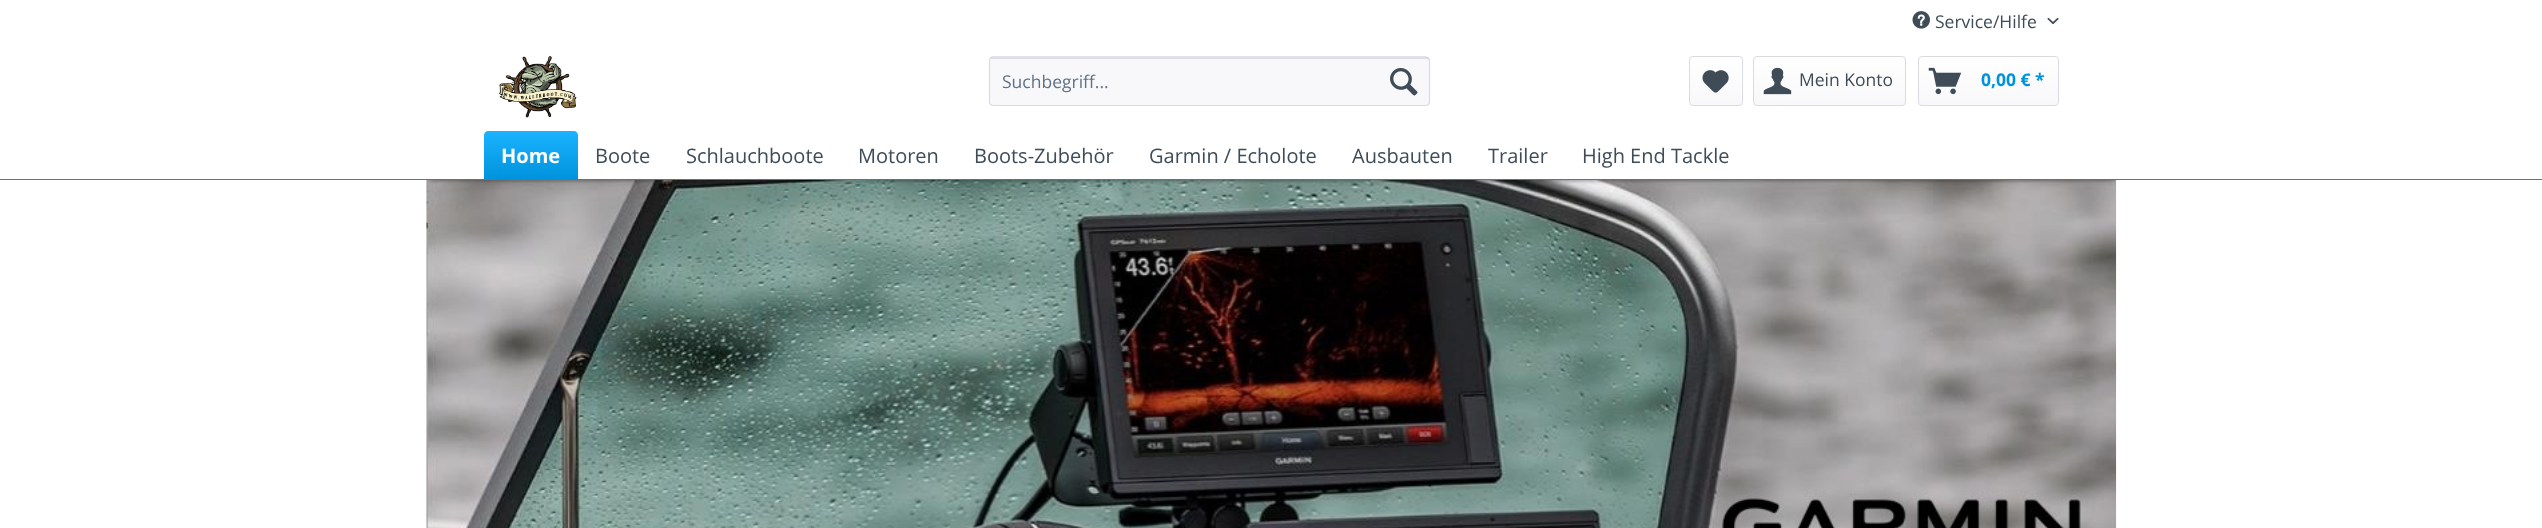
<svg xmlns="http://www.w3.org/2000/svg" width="2542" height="528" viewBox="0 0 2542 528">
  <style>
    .t1 { font: 17.5px Open Sans; fill: #3f4c58; }
    .t2 { font: 17.5px Open Sans; fill: #5f7385; }
    .t3 { font: bold 17.5px Open Sans; fill: #0093dd; }
    .t4 { font: bold 20px Open Sans; fill: #fff; }
    .t5 { font: 20px Open Sans; fill: #3f4c58; }
  </style>
  <defs>
    <linearGradient id="g1" gradientUnits="userSpaceOnUse" x1="1716" y1="58" x2="1716" y2="105"><stop offset="0" stop-color="#fff"/><stop offset="1" stop-color="#f8f8fa"/></linearGradient>
    <linearGradient id="g2" gradientUnits="userSpaceOnUse" x1="1829" y1="57" x2="1829" y2="105"><stop offset="0" stop-color="#fff"/><stop offset="1" stop-color="#f8f8fa"/></linearGradient>
    <linearGradient id="g3" gradientUnits="userSpaceOnUse" x1="1988" y1="57" x2="1988" y2="105"><stop offset="0" stop-color="#fff"/><stop offset="1" stop-color="#f8f8fa"/></linearGradient>
    <linearGradient id="g4" gradientUnits="userSpaceOnUse" x1="531" y1="131" x2="531" y2="179"><stop offset="0" stop-color="#1bb3ff"/><stop offset="1" stop-color="#0093dd"/></linearGradient>
  </defs>
  <rect width="100%" height="100%" fill="#fff"/>
  <image x="1912" y="11" width="18" height="18" href="images/1.png"/>
  <text x="1935" y="28" class="t1">Service/Hilfe</text>
  <image x="2047" y="17" width="12" height="8" href="images/2.png"/>
  <image x="499" y="56" width="78" height="62" href="images/3.png"/>
  <rect x="989" y="56" width="441" height="50" rx="4" fill="#f8f8fa"/>
  <path d="M992 59H1426C1428 59 1429 60 1429 61C1429 59 1428 58 1426 58H992L991 59L990 61C990 60 991 59 992 59Z" fill="#dadae5"/>
  <path d="M990.5 58L992.5 57H1426L1428.5 58" fill="none" stroke="#cbcbdb" stroke-width="1.2"/>
  <path d="M1428.5 58L1429.5 60V102.5L1428.5 104.5L1426 105.5H992.5L990.5 104.5L989.5 102.5V60L990.5 58" fill="none" stroke="#dadae5" stroke-width="1.2"/>
  <text x="1002" y="88" class="t2">Suchbegriff...</text>
  <image x="1390" y="68" width="28" height="28" href="images/4.png"/>
  <rect x="1690" y="58" width="51" height="47" rx="2.5" fill="url(#g1)"/>
  <rect x="1689.5" y="56.5" width="53" height="49" rx="3.5" fill="none" stroke="#dadae5"/>
  <image x="1702" y="70" width="27" height="23" href="images/5.png"/>
  <rect x="1754" y="58" width="151" height="47" rx="2.5" fill="url(#g2)"/>
  <rect x="1753.5" y="56.5" width="152" height="49" rx="3.5" fill="none" stroke="#dadae5"/>
  <image x="1763" y="67" width="29" height="28" href="images/6.png"/>
  <text x="1799" y="86" class="t1">Mein Konto</text>
  <rect x="1919" y="58" width="139" height="47" rx="2.5" fill="url(#g3)"/>
  <rect x="1918.5" y="56.5" width="140" height="49" rx="3.5" fill="none" stroke="#dadae5"/>
  <image x="1928" y="67" width="34" height="28" href="images/7.png"/>
  <text x="1981" y="86" class="t3">0,00 € *</text>
  <rect x="0" y="179" width="2542" height="1" fill="#0093dd"/>
  <path d="M488 131H574C576 131 578 133 578 135V179H484V135C484 133 486 131 488 131Z" fill="url(#g4)"/>
  <text x="501" y="163" class="t4">Home</text>
  <text x="595" y="163" class="t5">Boote</text>
  <text x="686" y="163" class="t5">Schlauchboote</text>
  <text x="858" y="163" class="t5">Motoren</text>
  <text x="974" y="163" class="t5">Boots-Zubehör</text>
  <text x="1149" y="163" class="t5">Garmin / Echolote</text>
  <text x="1352" y="163" class="t5">Ausbauten</text>
  <text x="1488" y="163" class="t5">Trailer</text>
  <text x="1582" y="163" class="t5">High End Tackle</text>
  <image x="426" y="180" width="1691" height="348" href="images/8.png"/>
</svg>
